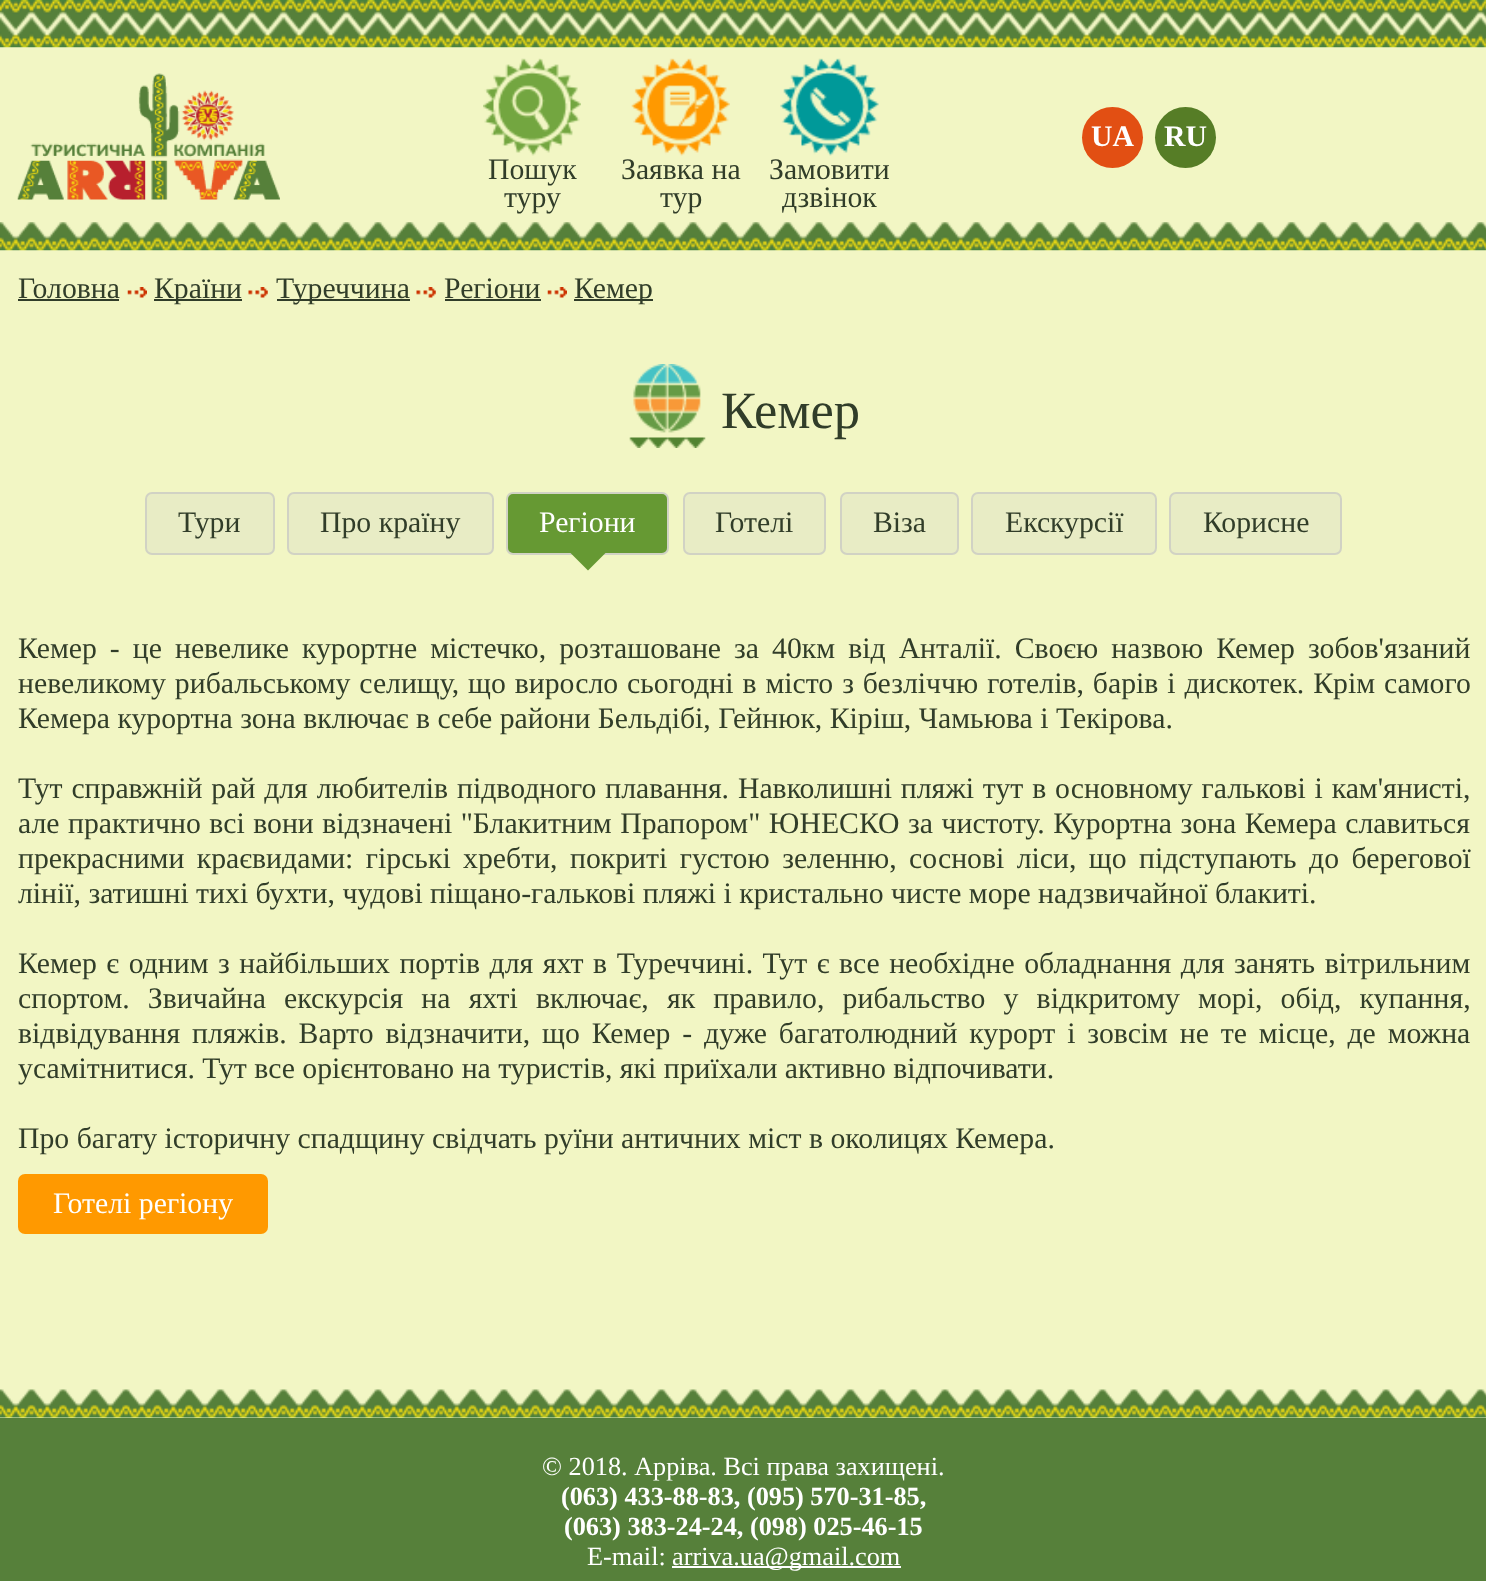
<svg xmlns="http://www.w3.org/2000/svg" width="1486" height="1581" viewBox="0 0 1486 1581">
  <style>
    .t1 { font: bold 29.75px Liberation Serif; fill: #fff; }
    .t2 { font: 29.75px Liberation Serif; fill: #313d29; }
    .t3 { font: 52.5px Liberation Serif; fill: #313d29; }
    .t4 { font: 29.75px Liberation Serif; fill: #fff; }
    .t5 { font: 26.25px Liberation Serif; fill: #fff; }
    .t6 { font: bold 26.25px Liberation Serif; fill: #fff; }
  </style>
  <defs>
    <clipPath id="clip1"><rect x="18" y="329" width="1452" height="1001"/></clipPath>
  </defs>
  <rect width="100%" height="100%" fill="#f2f6c4"/>
  <image x="0" y="0" width="1486" height="48" href="images/1.png"/>
  <image x="17" y="73" width="263" height="127" href="images/2.png"/>
  <circle cx="1112.5" cy="137.5" r="30.5" fill="#e24f13"/>
  <text x="1091" y="146" class="t1">UA</text>
  <circle cx="1185.5" cy="137.5" r="30.5" fill="#567d26"/>
  <text x="1164" y="146" class="t1">RU</text>
  <image x="483" y="58" width="98" height="98" href="images/3.png"/>
  <text x="488" y="179" class="t2">Пошук</text>
  <text x="504" y="207" class="t2">туру</text>
  <image x="631" y="58" width="99" height="98" href="images/4.png"/>
  <text x="621" y="179" class="t2">Заявка на</text>
  <text x="660" y="207" class="t2">тур</text>
  <image x="780" y="58" width="99" height="98" href="images/5.png"/>
  <text x="769" y="179" class="t2">Замовити</text>
  <text x="782" y="207" class="t2">дзвінок</text>
  <image x="0" y="222" width="1486" height="29" href="images/6.png"/>
  <text x="18" y="298" class="t2">Головна</text>
  <rect x="18" y="299" width="101" height="2" fill="#313d29"/>
  <image x="127" y="287" width="20" height="11" href="images/7.png"/>
  <rect x="154" y="299" width="88" height="2" fill="#313d29"/>
  <text x="154" y="298" class="t2">Країни</text>
  <image x="248" y="287" width="20" height="11" href="images/8.png"/>
  <rect x="277" y="299" width="133" height="2" fill="#313d29"/>
  <text x="276" y="298" class="t2">Туреччина</text>
  <image x="416" y="287" width="20" height="11" href="images/9.png"/>
  <text x="444" y="298" class="t2">Регіони</text>
  <rect x="445" y="299" width="96" height="2" fill="#313d29"/>
  <image x="547" y="287" width="20" height="11" href="images/7.png"/>
  <rect x="574" y="299" width="79" height="2" fill="#313d29"/>
  <text x="574" y="298" class="t2">Кемер</text>
  <image x="629" y="364" width="77" height="84" href="images/10.png"/>
  <text x="721" y="428" class="t3">Кемер</text>
  <rect x="146" y="493" width="128" height="61" rx="6" fill="#e8ecc5" stroke="#d1d2c4" stroke-width="2"/>
  <text x="178" y="532" class="t2">Тури</text>
  <rect x="288" y="493" width="205" height="61" rx="6" fill="#e8ecc5" stroke="#d1d2c4" stroke-width="2"/>
  <text x="320" y="532" class="t2">Про країну</text>
  <rect x="507" y="493" width="161" height="61" rx="6" fill="#693" stroke="#d1d2c4" stroke-width="2"/>
  <text x="539" y="532" class="t4">Регіони</text>
  <path d="M570.5 553H605.5L588 570.5Z" fill="#693"/>
  <rect x="684" y="493" width="141" height="61" rx="6" fill="#e8ecc5" stroke="#d1d2c4" stroke-width="2"/>
  <text x="715" y="532" class="t2">Готелі</text>
  <rect x="841" y="493" width="117" height="61" rx="6" fill="#e8ecc5" stroke="#d1d2c4" stroke-width="2"/>
  <text x="873" y="532" class="t2">Віза</text>
  <rect x="972" y="493" width="184" height="61" rx="6" fill="#e8ecc5" stroke="#d1d2c4" stroke-width="2"/>
  <text x="1005" y="532" class="t2">Екскурсії</text>
  <rect x="1170" y="493" width="171" height="61" rx="6" fill="#e8ecc5" stroke="#d1d2c4" stroke-width="2"/>
  <text x="1203" y="532" class="t2">Корисне</text>
  <text x="18" y="658" word-spacing="5.6" class="t2">Кемер - це невелике курортне містечко, розташоване за 40км від Анталії. Своєю назвою Кемер зобов'язаний</text>
  <text x="18" y="693" word-spacing="1.5" class="t2">невеликому рибальському селищу, що виросло сьогодні в місто з безліччю готелів, барів і дискотек. Крім самого</text>
  <text x="18" y="728" class="t2">Кемера курортна зона включає в себе райони Бельдібі, Гейнюк, Кіріш, Чамьюва і Текірова.</text>
  <text x="18" y="798" word-spacing="1.4" class="t2">Тут справжній рай для любителів підводного плавання. Навколишні пляжі тут в основному галькові і кам'янисті,</text>
  <text x="18" y="833" word-spacing="1.1" class="t2">але практично всі вони відзначені "Блакитним Прапором" ЮНЕСКО за чистоту. Курортна зона Кемера славиться</text>
  <text x="18" y="868" word-spacing="5" class="t2">прекрасними краєвидами: гірські хребти, покриті густою зеленню, соснові ліси, що підступають до берегової</text>
  <g clip-path="url(#clip1)">
    <text x="18" y="903" class="t2">лінії, затишні тихі бухти, чудові піщано-галькові пляжі і кристально чисте море надзвичайної блакиті.</text>
  </g>
  <text x="18" y="973" word-spacing="2.1" class="t2">Кемер є одним з найбільших портів для яхт в Туреччині. Тут є все необхідне обладнання для занять вітрильним</text>
  <text x="18" y="1008" word-spacing="10.75" class="t2">спортом. Звичайна екскурсія на яхті включає, як правило, рибальство у відкритому морі, обід, купання,</text>
  <text x="18" y="1043" word-spacing="4.4" class="t2">відвідування пляжів. Варто відзначити, що Кемер - дуже багатолюдний курорт і зовсім не те місце, де можна</text>
  <text x="18" y="1078" class="t2">усамітнитися. Тут все орієнтовано на туристів, які приїхали активно відпочивати.</text>
  <text x="18" y="1148" class="t2">Про багату історичну спадщину свідчать руїни античних міст в околицях Кемера.</text>
  <rect x="18" y="1174" width="250" height="60" rx="7" fill="#f90"/>
  <text x="53" y="1213" class="t4">Готелі регіону</text>
  <rect x="0" y="1418" width="1486" height="163" fill="#56803a"/>
  <image x="0" y="1389" width="1486" height="29" href="images/11.png"/>
  <text x="542" y="1475" class="t5">© 2018. Арріва. Всі права захищені.</text>
  <text x="561" y="1505" class="t6">(063) 433-88-83, (095) 570-31-85,</text>
  <text x="564" y="1535" class="t6">(063) 383-24-24, (098) 025-46-15</text>
  <text x="587" y="1565" class="t5">E-mail:</text>
  <rect x="672" y="1566" width="229" height="2" fill="#fff"/>
  <text x="672" y="1565" class="t5">arriva.ua@gmail.com</text>
</svg>
